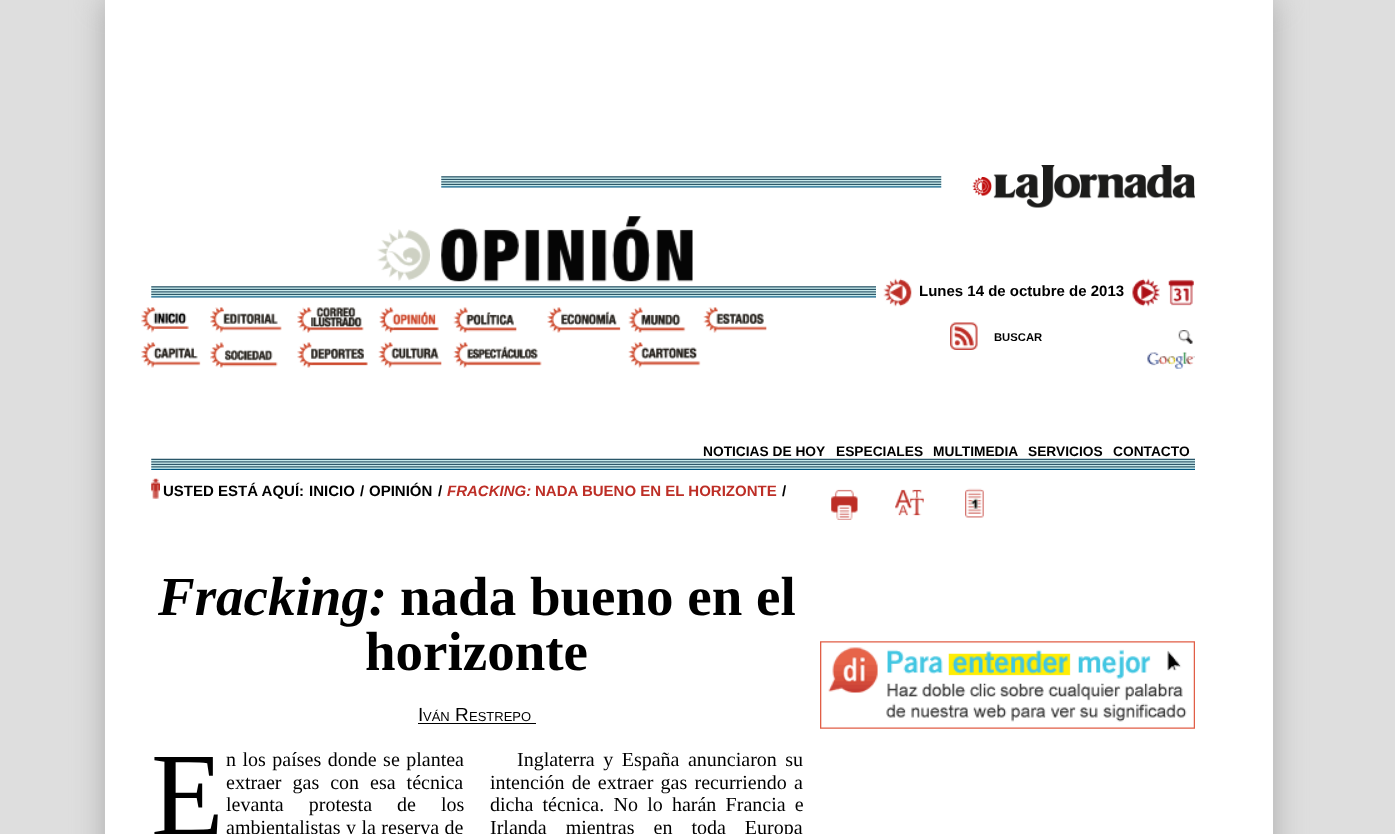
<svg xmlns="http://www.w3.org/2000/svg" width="1395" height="834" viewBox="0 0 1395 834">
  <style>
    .t1 { font: bold 15px Liberation Sans; fill: #000; }
    .t2 { font: bold 11.25px Liberation Sans; fill: #000; }
    .t3 { font: bold 13.75px Liberation Sans; fill: #000; }
    .t4 { font: italic bold 15px Liberation Sans; fill: #bd2e26; }
    .t5 { font: bold 15px Liberation Sans; fill: #bd2e26; }
    .t6 { font: italic bold 55px Liberation Serif; fill: #000; }
    .t7 { font: bold 55px Liberation Serif; fill: #000; }
    .t8 { font: 19px Liberation Sans; fill: #000; }
    .t9 { font: 13px Liberation Sans; fill: #000; }
    .t10 { font: 119px Liberation Serif; fill: #000; }
    .t11 { font: 20px Liberation Serif; fill: #000; }
  </style>
  <rect width="100%" height="100%" fill="#dedede"/>
  <rect x="105" y="-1" width="1168" height="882" fill="#aaa" filter="blur(15.5px)"/>
  <rect x="105" y="0" width="1168" height="834" fill="#fff"/>
  <image x="441" y="176" width="501" height="12" href="images/1.png"/>
  <image x="972" y="165" width="223" height="43" href="images/2.png"/>
  <image x="377" y="229" width="53" height="52" href="images/3.png"/>
  <image x="441" y="216" width="252" height="66" href="images/4.png"/>
  <image x="151" y="286" width="725" height="12" href="images/5.png"/>
  <image x="883" y="278" width="29" height="29" href="images/6.png"/>
  <text x="919" y="296" class="t1">Lunes 14 de octubre de 2013</text>
  <image x="1132" y="278" width="28" height="29" href="images/7.png"/>
  <image x="1168" y="279" width="26" height="27" href="images/8.png"/>
  <image x="141" y="307" width="48" height="26" href="images/9.png"/>
  <image x="210" y="307" width="72" height="26" href="images/10.png"/>
  <image x="297" y="307" width="67" height="26" href="images/11.png"/>
  <image x="379" y="307" width="60" height="26" href="images/12.png"/>
  <image x="453" y="307" width="64" height="26" href="images/13.png"/>
  <image x="547" y="307" width="74" height="26" href="images/14.png"/>
  <image x="628" y="307" width="58" height="26" href="images/15.png"/>
  <image x="703" y="307" width="64" height="26" href="images/16.png"/>
  <image x="141" y="342" width="60" height="26" href="images/17.png"/>
  <image x="210" y="342" width="68" height="26" href="images/18.png"/>
  <image x="297" y="342" width="71" height="26" href="images/19.png"/>
  <image x="378" y="342" width="64" height="26" href="images/20.png"/>
  <image x="453" y="342" width="89" height="26" href="images/21.png"/>
  <image x="628" y="342" width="73" height="26" href="images/22.png"/>
  <image x="950" y="322" width="28" height="28" href="images/23.png"/>
  <text x="994" y="341" class="t2">BUSCAR</text>
  <image x="1178" y="330" width="15" height="14" href="images/24.png"/>
  <image x="1147" y="352" width="48" height="17" href="images/25.png"/>
  <text x="703" y="456" class="t3">NOTICIAS DE HOY</text>
  <text x="836" y="456" class="t3">ESPECIALES</text>
  <text x="933" y="456" class="t3">MULTIMEDIA</text>
  <text x="1028" y="456" class="t3">SERVICIOS</text>
  <text x="1113" y="456" class="t3">CONTACTO</text>
  <image x="151" y="458" width="1044" height="12" href="images/26.png"/>
  <image x="151" y="478" width="9" height="21" href="images/27.png"/>
  <text x="163" y="496" class="t1">USTED ESTÁ AQUÍ:</text>
  <text x="309" y="496" class="t1">INICIO</text>
  <text x="360" y="496" class="t1">/</text>
  <text x="369" y="496" class="t1">OPINIÓN</text>
  <text x="438" y="496" class="t1">/</text>
  <text x="447" y="496" class="t4">FRACKING:</text>
  <text x="535" y="496" class="t5">NADA BUENO EN EL HORIZONTE</text>
  <text x="782" y="496" class="t1">/</text>
  <image x="831" y="489" width="27" height="31" href="images/28.png"/>
  <image x="895" y="489" width="29" height="27" href="images/29.png"/>
  <image x="965" y="488" width="19" height="30" href="images/30.png"/>
  <image x="820" y="641" width="375" height="88" href="images/31.png"/>
  <text x="158" y="615" class="t6">Fracking:</text>
  <text x="400" y="615" class="t7">nada bueno en el</text>
  <text x="365" y="670" class="t7">horizonte</text>
  <text x="418" y="721" class="t8">I</text>
  <text x="423" y="721" class="t9">VÁN</text>
  <text x="455" y="721" class="t8">R</text>
  <text x="469" y="721" class="t9">ESTREPO</text>
  <rect x="418" y="723" width="118" height="1" fill="#000"/>
  <text x="151" y="835" class="t10">E</text>
  <text x="226" y="766" word-spacing="1.5" class="t11">n los países donde se plantea</text>
  <text x="226" y="789" word-spacing="6" class="t11">extraer gas con esa técnica</text>
  <text x="226" y="811" word-spacing="20" class="t11">levanta protesta de los</text>
  <text x="226" y="834" word-spacing="0.5" class="t11">ambientalistas y la reserva de</text>
  <text x="517" y="766" word-spacing="3.5" class="t11">Inglaterra y España anunciaron su</text>
  <text x="490" y="789" word-spacing="2.25" class="t11">intención de extraer gas recurriendo a</text>
  <text x="490" y="811" word-spacing="4.25" class="t11">dicha técnica. No lo harán Francia e</text>
  <text x="490" y="834" word-spacing="14" class="t11">Irlanda mientras en toda Europa</text>
</svg>
